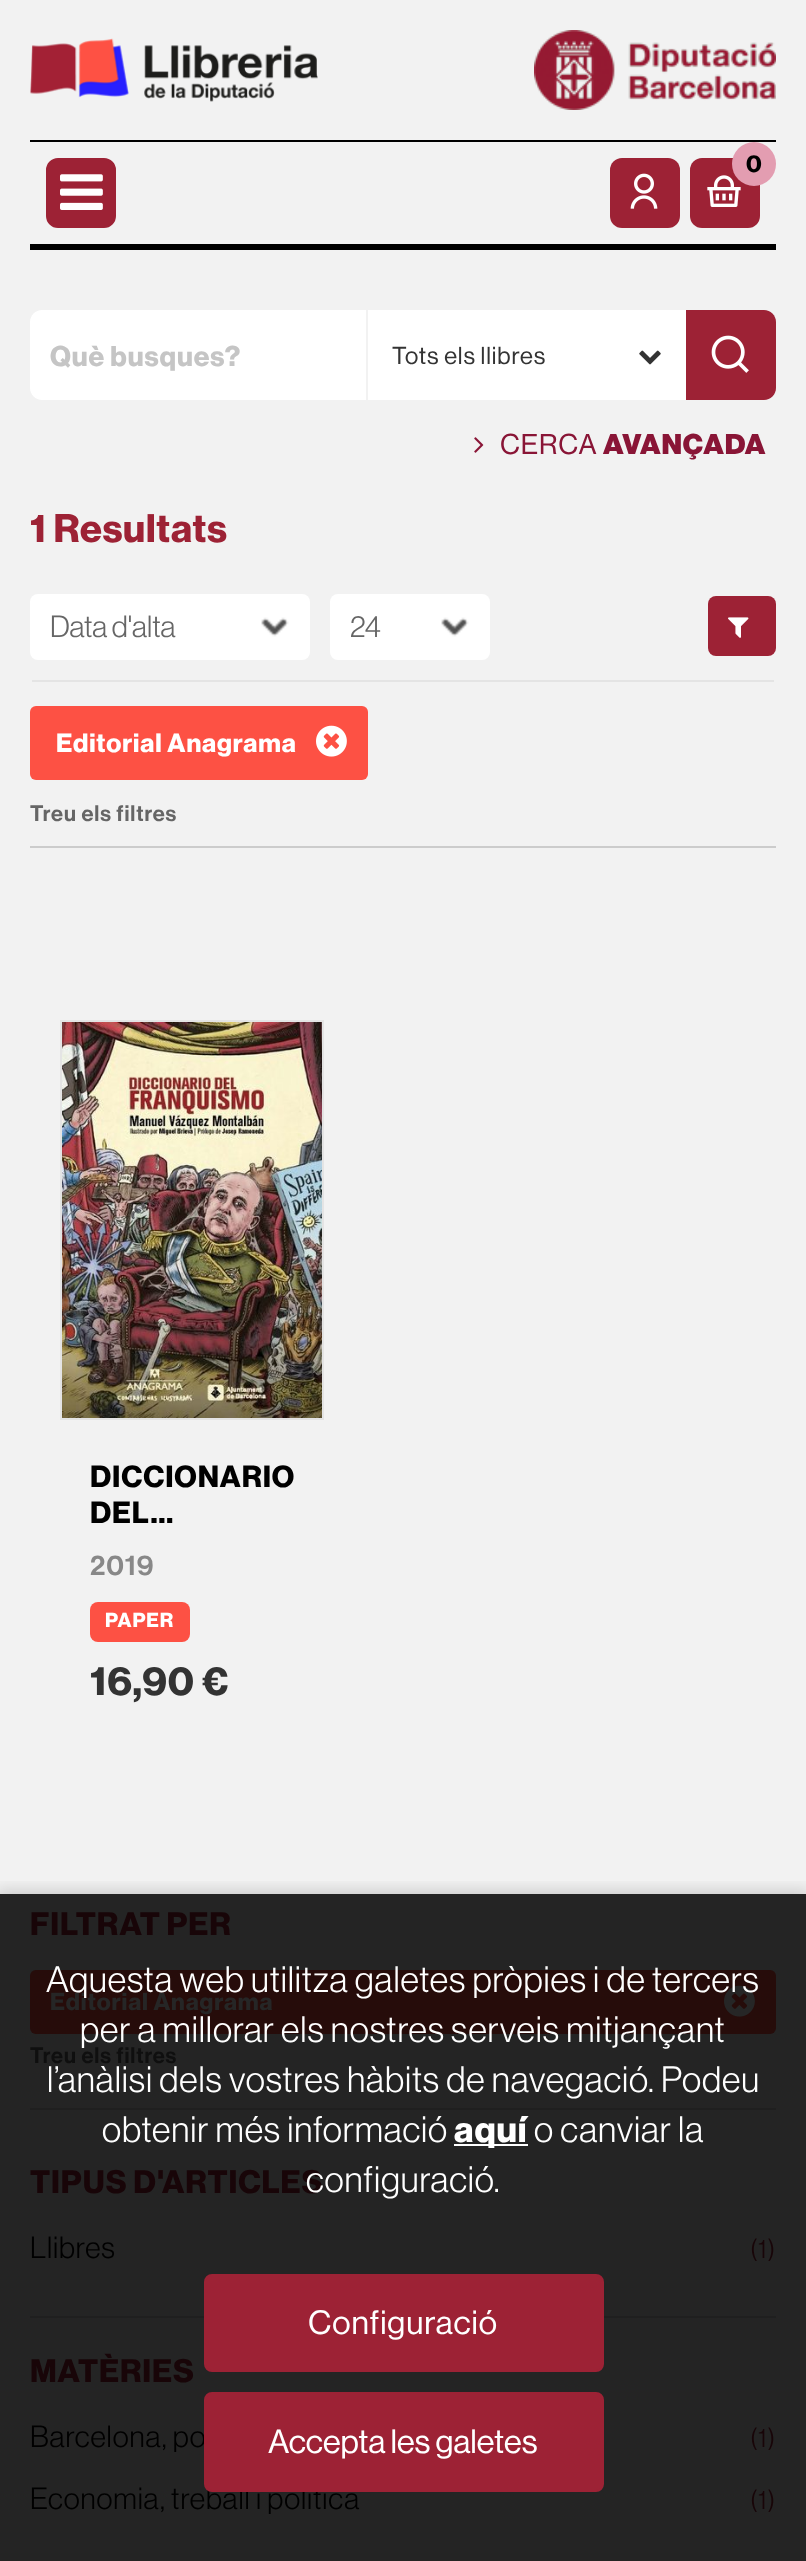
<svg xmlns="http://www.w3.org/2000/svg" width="806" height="2561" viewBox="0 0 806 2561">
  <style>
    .t1 { font: bold 24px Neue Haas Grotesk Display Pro; letter-spacing: 0.9px; fill: #000; }
    .t2 { font: bold 28px Neue Haas Grotesk Display Pro; letter-spacing: 0.9px; fill: #c5c5c5; }
    .t3 { font: 500 24px Neue Haas Grotesk Display Pro; letter-spacing: 0.9px; fill: #333; }
    .t4 { font: 500 28px Neue Haas Grotesk Display Pro; letter-spacing: 0.9px; fill: #891536; }
    .t5 { font: 900 28px Neue Haas Grotesk Display Pro; letter-spacing: 0.9px; fill: #891536; }
    .t6 { font: bold 39px Neue Haas Grotesk Display Pro; letter-spacing: 0.75px; fill: #9d2235; }
    .t7 { font: 30px Neue Haas Grotesk Display Pro; fill: #666; }
    .t8 { font: bold 26px Neue Haas Grotesk Display Pro; letter-spacing: 0.9px; fill: #fff; }
    .t9 { font: 500 22px 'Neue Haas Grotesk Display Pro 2'; letter-spacing: 0.9px; fill: #666; }
    .t10 { font: bold 30px Neue Haas Grotesk Display Pro; letter-spacing: 0.9px; fill: #000; }
    .t11 { font: 500 28px 'Neue Haas Grotesk Display Pro 2'; letter-spacing: 1px; fill: #888; }
    .t12 { font: bold 20px Neue Haas Grotesk Display Pro; letter-spacing: 0.9px; fill: #fff; }
    .t13 { font: bold 40px Neue Haas Grotesk Display Pro; letter-spacing: 0.9px; fill: #333; }
    .t14 { font: bold 32px Neue Haas Grotesk Display Pro; letter-spacing: 0.9px; fill: #180508; }
    .t15 { font: bold 24px Neue Haas Grotesk Display Pro; letter-spacing: 0.9px; fill: #262626; }
    .t16 { font: 500 22px 'Neue Haas Grotesk Display Pro 2'; letter-spacing: 0.9px; fill: #0f0f0f; }
    .t17 { font: 30px Neue Haas Grotesk Display Pro; letter-spacing: 0.9px; fill: #000; }
    .t18 { font: 26px Neue Haas Grotesk Display Pro; letter-spacing: 0.9px; fill: #180508; }
    .t19 { font: 36px Neue Haas Grotesk Display Pro; letter-spacing: 0.9px; fill: #fff; }
    .t20 { font: bold 36px Neue Haas Grotesk Display Pro; letter-spacing: 0.9px; fill: #fff; }
    .t21 { font: 500 33px Neue Haas Grotesk Display Pro; letter-spacing: 0.9px; fill: #fff; }
    .t22 { font: 500 33px Neue Haas Grotesk Display Pro; fill: #fff; }
  </style>
  <defs>
    <clipPath id="clip1"><rect x="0" y="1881" width="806" height="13"/></clipPath>
  </defs>
  <rect width="100%" height="100%" fill="#f2f2f2"/>
  <rect x="0" y="1894" width="806" height="667" fill="#242424"/>
  <image x="30" y="38" width="288" height="64" href="images/1.png"/>
  <image x="534" y="30" width="242" height="80" href="images/2.png"/>
  <rect x="30" y="140" width="746" height="2" fill="#000"/>
  <rect x="30" y="244" width="746" height="6" fill="#000"/>
  <rect x="47" y="159" width="68" height="68" rx="11" fill="#9d2235" stroke="#9d2235" stroke-width="2"/>
  <image x="60" y="174" width="43" height="36" href="images/3.png"/>
  <rect x="610" y="158" width="70" height="70" rx="12" fill="#9d2235"/>
  <image x="630" y="173" width="28" height="36" href="images/4.png"/>
  <rect x="690" y="158" width="70" height="70" rx="12" fill="#9d2235"/>
  <image x="707" y="175" width="34" height="32" href="images/5.png"/>
  <circle cx="754" cy="164" r="22" fill="#e39db1"/>
  <text x="746" y="172" class="t1">0</text>
  <path d="M42 310H366V400H42C35.5 400 30 394.5 30 388V322C30 315.5 35.5 310 42 310Z" fill="#fff"/>
  <text x="50" y="366" class="t2">Què busques?</text>
  <rect x="368" y="310" width="318" height="90" fill="#fff"/>
  <text x="392" y="364" class="t3">Tots els llibres</text>
  <image x="639" y="350" width="22" height="15" href="images/6.png"/>
  <path d="M686 310H764C770.5 310 776 315.5 776 322V388C776 394.5 770.5 400 764 400H686Z" fill="#9d2235"/>
  <image x="711" y="335" width="38" height="38" href="images/7.png"/>
  <image x="474" y="437" width="10" height="16" href="images/8.png"/>
  <text x="500" y="454" class="t4">CERCA</text>
  <text x="603" y="454" class="t5">AVANÇADA</text>
  <text x="30" y="542" class="t6">1 Resultats</text>
  <rect x="32" y="680" width="742" height="2" fill="#e4e4e4"/>
  <rect x="30" y="594" width="280" height="66" rx="8" fill="#fff"/>
  <image x="261" y="617" width="28" height="20" href="images/9.png"/>
  <text x="50" y="637" class="t7">Data d'alta</text>
  <rect x="330" y="594" width="160" height="66" rx="8" fill="#fff"/>
  <image x="441" y="617" width="28" height="20" href="images/9.png"/>
  <text x="350" y="637" class="t7">24</text>
  <rect x="708" y="596" width="68" height="60" rx="8" fill="#9d2235"/>
  <image x="728" y="617" width="21" height="21" href="images/10.png"/>
  <rect x="30" y="846" width="746" height="2" fill="#ccc"/>
  <rect x="30" y="706" width="338" height="74" rx="6" fill="#fd5144"/>
  <text x="56" y="752" class="t8">Editorial Anagrama</text>
  <image x="316" y="725" width="31" height="32" href="images/11.png"/>
  <text x="30" y="821" class="t9">Treu els filtres</text>
  <rect x="61" y="1021" width="262" height="398" fill="none" stroke="#e4e4e4" stroke-width="2"/>
  <image x="62" y="1022" width="260" height="396" href="images/12.png"/>
  <text x="90" y="1487" class="t10">DICCIONARIO</text>
  <text x="90" y="1523" class="t10">DEL…</text>
  <text x="90" y="1575" class="t11">2019</text>
  <rect x="90" y="1602" width="100" height="40" rx="8" fill="#fd5144"/>
  <text x="105" y="1627" class="t12">PAPER</text>
  <text x="90" y="1695" class="t13">16,90 €</text>
  <rect x="30" y="2108" width="746" height="2" fill="#1f1f1f"/>
  <text x="30" y="1935" class="t14">FILTRAT PER</text>
  <rect x="30" y="1970" width="746" height="64" rx="6" fill="#260c0a"/>
  <text x="50" y="2010" class="t15">Editorial Anagrama</text>
  <image x="724" y="1985" width="31" height="32" href="images/13.png"/>
  <text x="30" y="2063" class="t16">Treu els filtres</text>
  <rect x="30" y="2316" width="746" height="2" fill="#1f1f1f"/>
  <text x="30" y="2193" class="t14">TIPUS D'ARTICLES</text>
  <text x="30" y="2258" class="t17">Llibres</text>
  <text x="750" y="2258" class="t18">(1)</text>
  <text x="30" y="2382" class="t14">MATÈRIES</text>
  <text x="30" y="2447" class="t17">Barcelona, po</text>
  <text x="750" y="2447" class="t18">(1)</text>
  <text x="30" y="2509" class="t17">Economia, treball i política</text>
  <text x="750" y="2509" class="t18">(1)</text>
  <g clip-path="url(#clip1)">
    <rect x="-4" y="1890" width="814" height="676" fill="#00000026" filter="blur(8px)"/>
  </g>
  <text x="46" y="1992" class="t19">Aquesta web utilitza galetes pròpies i de tercers</text>
  <text x="80" y="2042" class="t19">per a millorar els nostres serveis mitjançant</text>
  <text x="47" y="2092" class="t19">l’anàlisi dels vostres hàbits de navegació. Podeu</text>
  <text x="102" y="2142" class="t19">obtenir més informació</text>
  <rect x="454" y="2144" width="74" height="2" fill="#fff"/>
  <text x="454" y="2142" class="t20">aquí</text>
  <text x="534" y="2142" class="t19">o canviar la</text>
  <text x="306" y="2192" class="t19">configuració.</text>
  <rect x="205" y="2275" width="398" height="96" rx="7" fill="#9d2235" stroke="#9d2235" stroke-width="2"/>
  <text x="308" y="2334" class="t21">Configuració</text>
  <rect x="205" y="2393" width="398" height="98" rx="7" fill="#9d2235" stroke="#9d2235" stroke-width="2"/>
  <text x="268" y="2453" class="t22">Accepta les galetes</text>
</svg>
